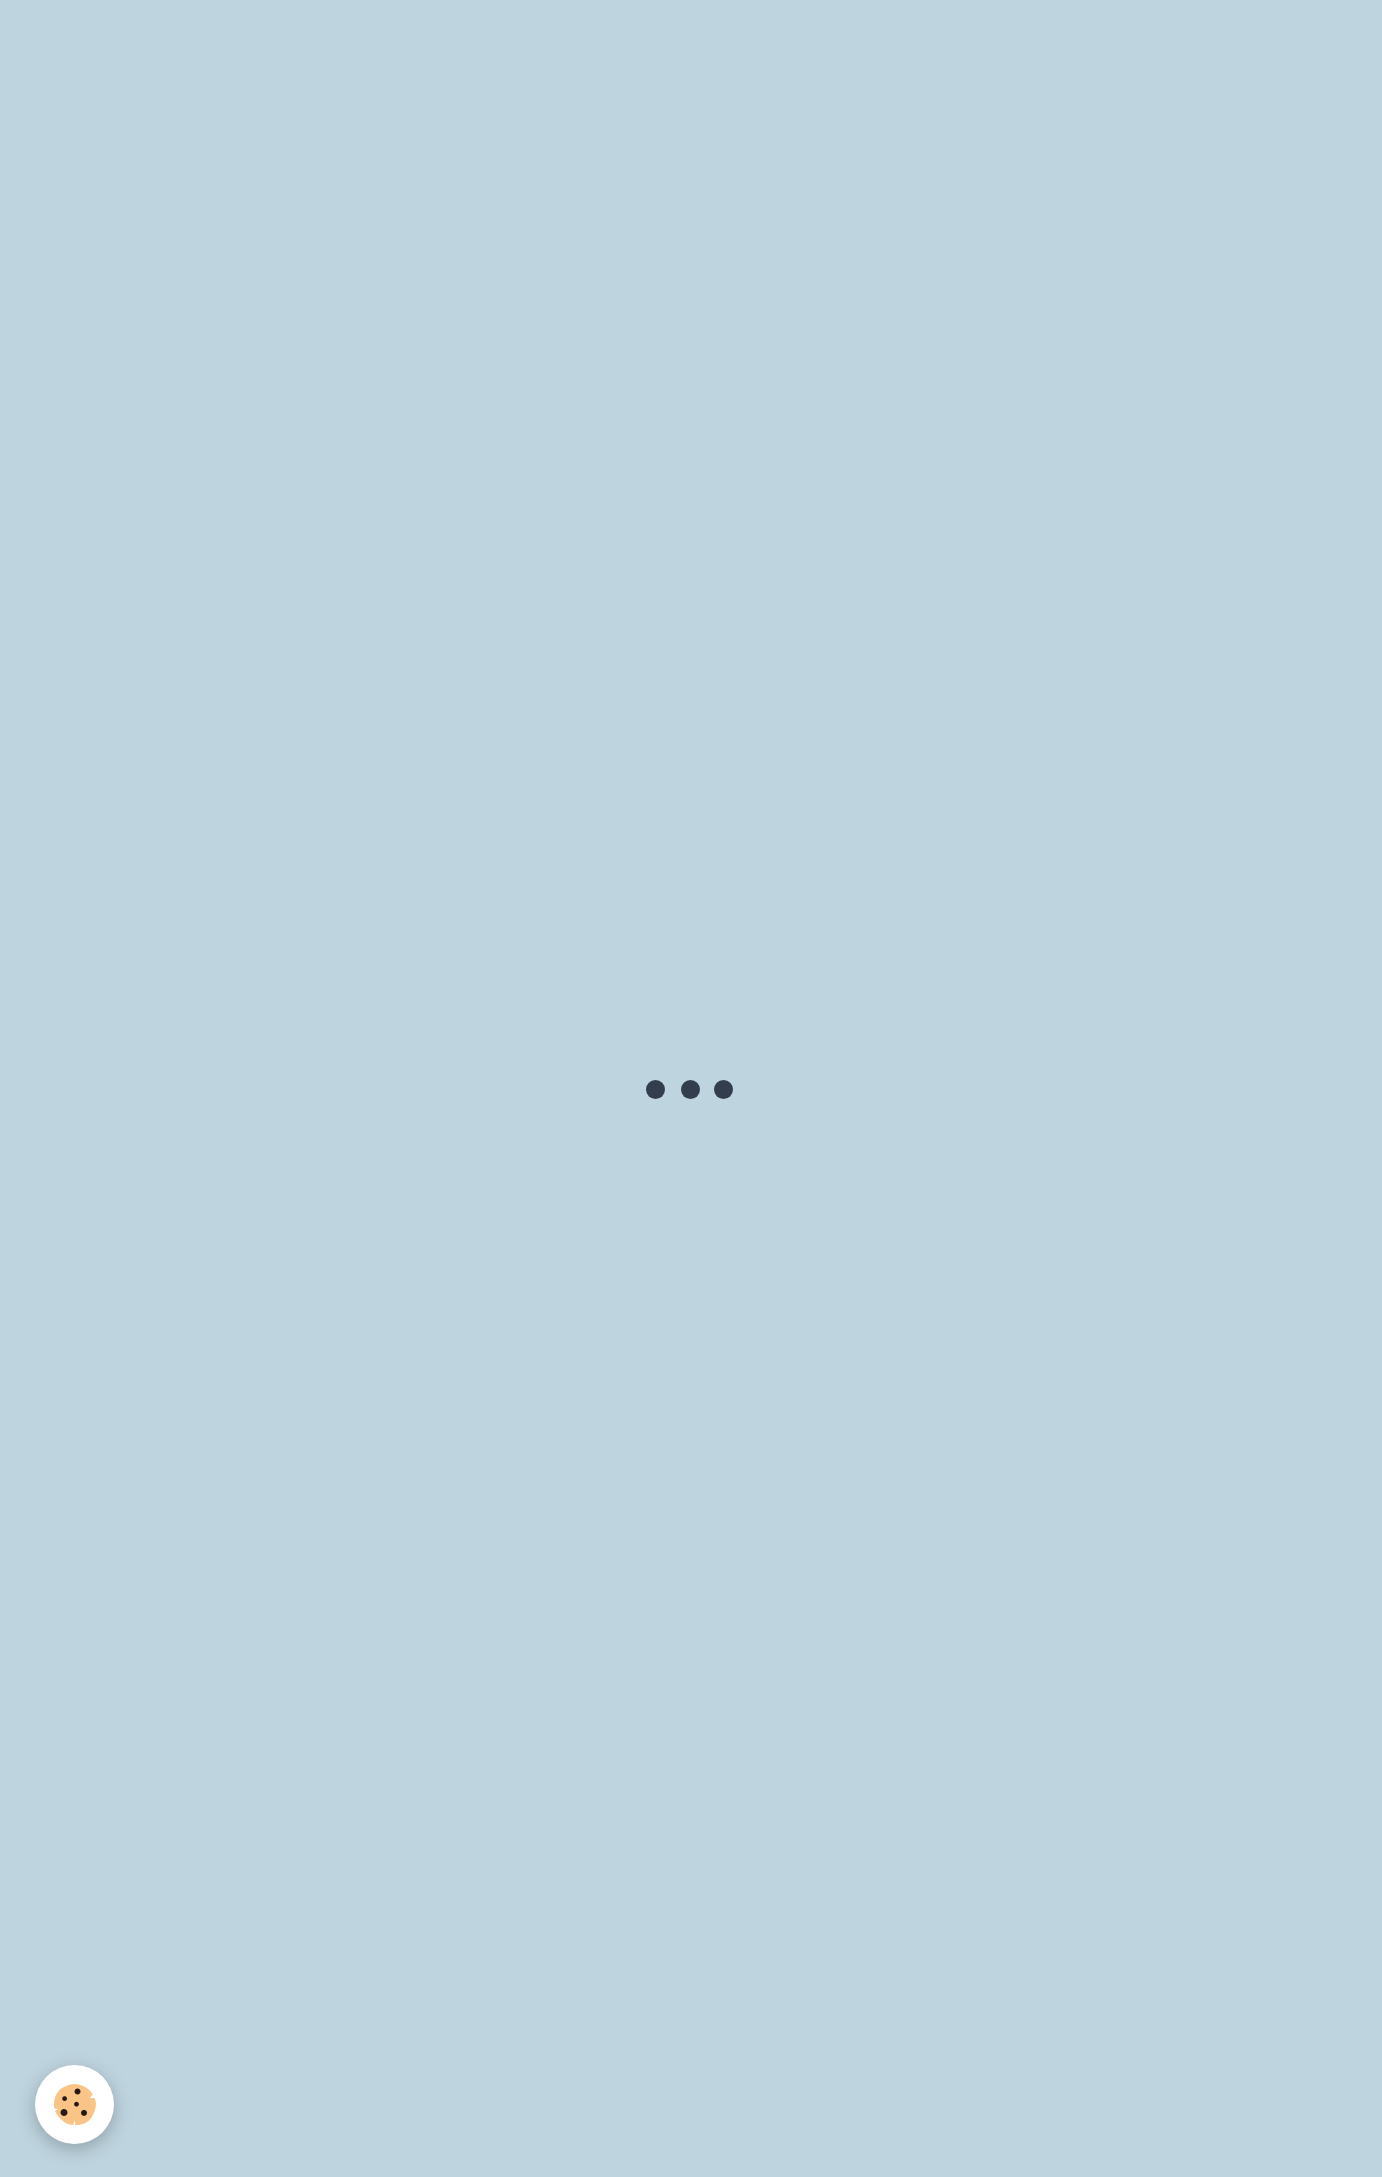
<svg xmlns="http://www.w3.org/2000/svg" width="1382" height="2177" viewBox="0 0 1382 2177">
  <rect width="100%" height="100%" fill="#bed4df"/>
  <circle cx="655.5" cy="1089.5" r="9.5" fill="#323e4e"/>
  <circle cx="690.5" cy="1089.5" r="9.5" fill="#323e4e"/>
  <circle cx="723.5" cy="1089.5" r="9.5" fill="#323e4e"/>
  <rect x="35" y="2070" width="79" height="79" rx="39.5" fill="#0000003d" filter="blur(9px)"/>
  <circle cx="74.5" cy="2104.5" r="39.5" fill="#fff"/>
  <image x="53" y="2084" width="43" height="42" href="images/1.png"/>
</svg>
